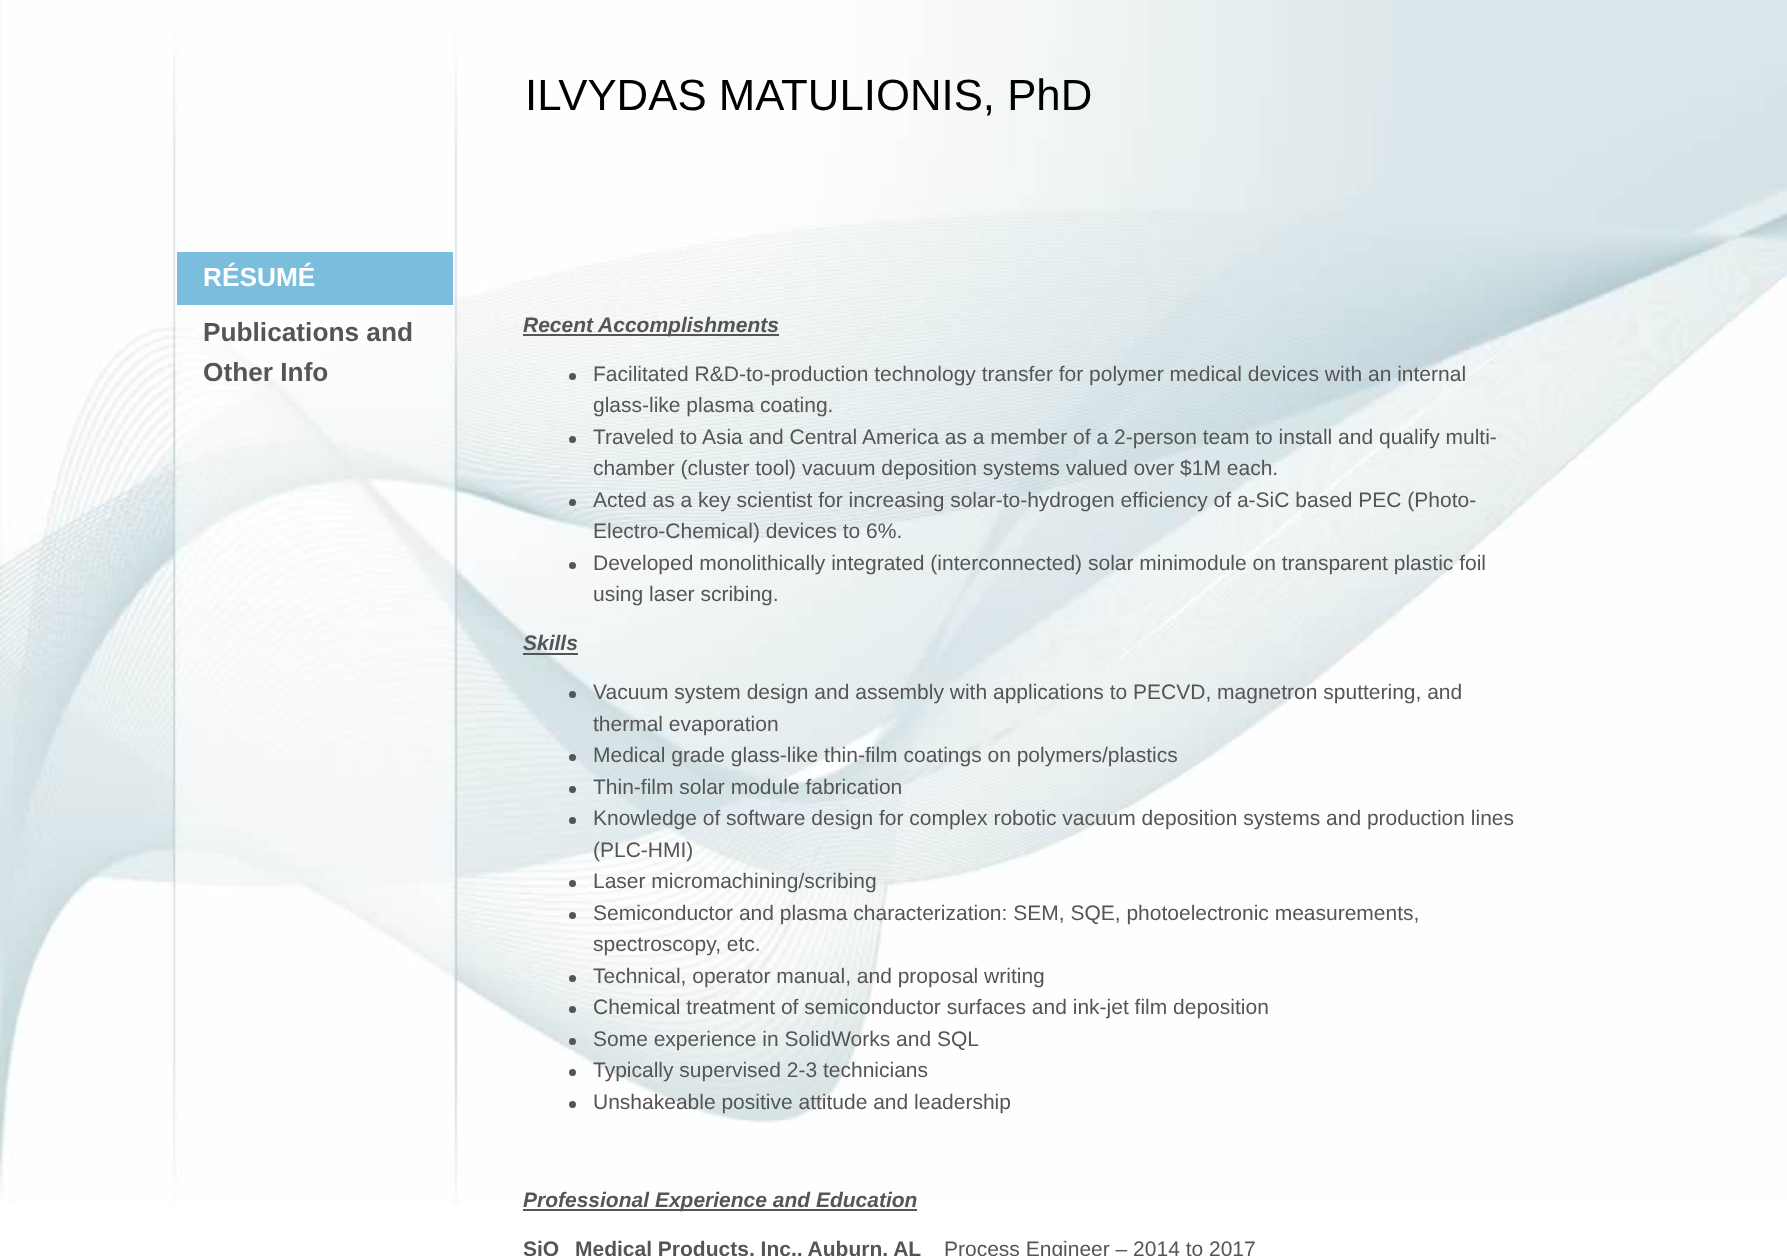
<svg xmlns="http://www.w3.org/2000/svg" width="1787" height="1256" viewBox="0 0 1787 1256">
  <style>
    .t1 { font: 43.75px Liberation Sans; fill: #000; }
    .t2 { font: bold 26.25px Liberation Sans; fill: #fff; }
    .t3 { font: bold 26.25px Liberation Sans; fill: #555; }
    .t4 { font: italic bold 21px Liberation Sans; fill: #555; }
    .t5 { font: 21px Liberation Sans; fill: #555; }
    .t6 { font: bold 21px Liberation Sans; fill: #555; }
  </style>
  <rect width="100%" height="100%" fill="#fff"/>
  <image x="0" y="0" width="1787" height="1204" href="images/1.png"/>
  <text x="525" y="110" class="t1">ILVYDAS MATULIONIS, PhD</text>
  <rect x="177" y="252" width="276" height="53" fill="#7bbddd"/>
  <text x="203" y="286" class="t2">RÉSUMÉ</text>
  <text x="203" y="341" class="t3">Publications and</text>
  <text x="203" y="381" class="t3">Other Info</text>
  <rect x="523" y="334" width="256" height="2" fill="#555"/>
  <text x="523" y="332" class="t4">Recent Accomplishments</text>
  <circle cx="572.5" cy="376.5" r="3.5" fill="#555"/>
  <text x="593" y="381" class="t5">Facilitated R&amp;D-to-production technology transfer for polymer medical devices with an internal</text>
  <text x="593" y="412" class="t5">glass-like plasma coating.</text>
  <circle cx="572.5" cy="439.5" r="3.5" fill="#555"/>
  <text x="593" y="444" class="t5">Traveled to Asia and Central America as a member of a 2-person team to install and qualify multi-</text>
  <text x="593" y="475" class="t5">chamber (cluster tool) vacuum deposition systems valued over $1M each.</text>
  <circle cx="572.5" cy="502.5" r="3.5" fill="#555"/>
  <text x="593" y="507" class="t5">Acted as a key scientist for increasing solar-to-hydrogen efficiency of a-SiC based PEC (Photo-</text>
  <text x="593" y="538" class="t5">Electro-Chemical) devices to 6%.</text>
  <circle cx="572.5" cy="565.5" r="3.5" fill="#555"/>
  <text x="593" y="570" class="t5">Developed monolithically integrated (interconnected) solar minimodule on transparent plastic foil</text>
  <text x="593" y="601" class="t5">using laser scribing.</text>
  <text x="523" y="650" class="t4">Skills</text>
  <rect x="523" y="653" width="55" height="2" fill="#555"/>
  <circle cx="572.5" cy="694.5" r="3.5" fill="#555"/>
  <text x="593" y="699" class="t5">Vacuum system design and assembly with applications to PECVD, magnetron sputtering, and</text>
  <text x="593" y="731" class="t5">thermal evaporation</text>
  <circle cx="572.5" cy="757.5" r="3.5" fill="#555"/>
  <text x="593" y="762" class="t5">Medical grade glass-like thin-film coatings on polymers/plastics</text>
  <circle cx="572.5" cy="789.5" r="3.5" fill="#555"/>
  <text x="593" y="794" class="t5">Thin-film solar module fabrication</text>
  <circle cx="572.5" cy="820.5" r="3.5" fill="#555"/>
  <text x="593" y="825" class="t5">Knowledge of software design for complex robotic vacuum deposition systems and production lines</text>
  <text x="593" y="857" class="t5">(PLC-HMI)</text>
  <circle cx="572.5" cy="883.5" r="3.5" fill="#555"/>
  <text x="593" y="888" class="t5">Laser micromachining/scribing</text>
  <circle cx="572.5" cy="915.5" r="3.5" fill="#555"/>
  <text x="593" y="920" class="t5">Semiconductor and plasma characterization: SEM, SQE, photoelectronic measurements,</text>
  <text x="593" y="951" class="t5">spectroscopy, etc.</text>
  <circle cx="572.5" cy="978.5" r="3.5" fill="#555"/>
  <text x="593" y="983" class="t5">Technical, operator manual, and proposal writing</text>
  <circle cx="572.5" cy="1009.5" r="3.5" fill="#555"/>
  <text x="593" y="1014" class="t5">Chemical treatment of semiconductor surfaces and ink-jet film deposition</text>
  <circle cx="572.5" cy="1041.5" r="3.5" fill="#555"/>
  <text x="593" y="1046" class="t5">Some experience in SolidWorks and SQL</text>
  <circle cx="572.5" cy="1072.5" r="3.5" fill="#555"/>
  <text x="593" y="1077" class="t5">Typically supervised 2-3 technicians</text>
  <circle cx="572.5" cy="1104.5" r="3.5" fill="#555"/>
  <text x="593" y="1109" class="t5">Unshakeable positive attitude and leadership</text>
  <rect x="523" y="1209" width="394" height="2" fill="#555"/>
  <text x="523" y="1207" class="t4">Professional Experience and Education</text>
  <text x="523" y="1256" class="t6">SiO</text>
  <text x="575" y="1256" class="t6">Medical Products, Inc., Auburn, AL</text>
  <text x="944" y="1256" class="t5">Process Engineer – 2014 to 2017</text>
</svg>
